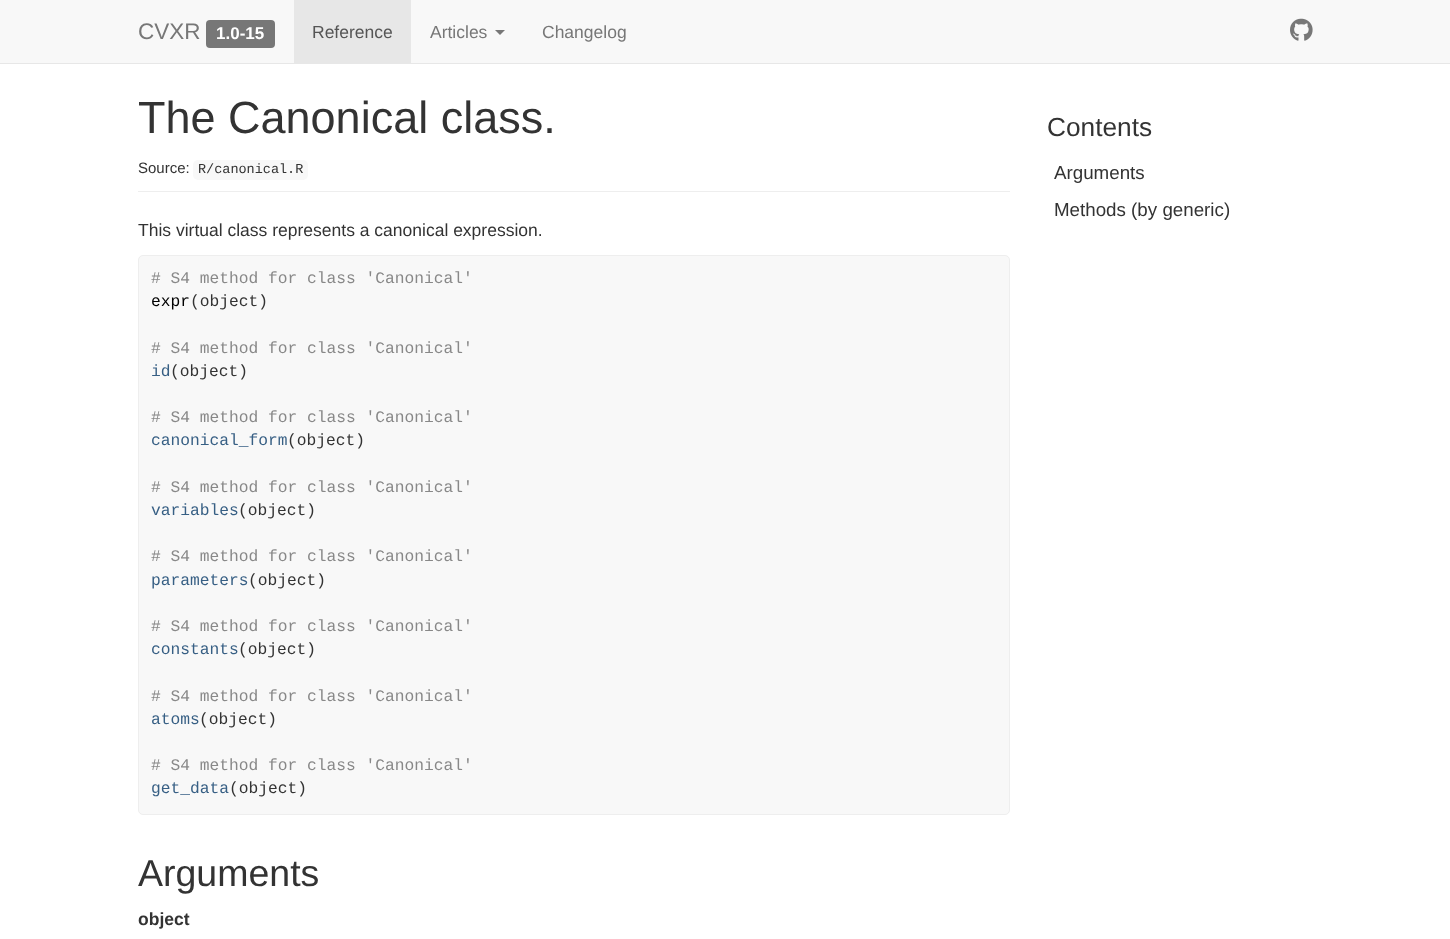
<svg xmlns="http://www.w3.org/2000/svg" width="1450" height="939" viewBox="0 0 1450 939">
  <style>
    .t1 { font: 22.5px Liberation Sans; fill: #777; }
    .t2 { font: bold 17px Liberation Sans; fill: #fff; }
    .t3 { font: 17.5px Liberation Sans; fill: #555; }
    .t4 { font: 17.5px Liberation Sans; fill: #777; }
    .t5 { font: 45px Liberation Sans; fill: #333; }
    .t6 { font: 15px Liberation Sans; fill: #333; }
    .t7 { font: 13.5px Liberation Mono; fill: #333; }
    .t8 { font: 17.5px Liberation Sans; fill: #333; }
    .t9 { font: 16.25px Liberation Mono; fill: #888; }
    .t10 { font: 16.25px Liberation Mono; fill: #000; }
    .t11 { font: 16.25px Liberation Mono; fill: #333; }
    .t12 { font: 16.25px Liberation Mono; fill: #375f84; }
    .t13 { font: 37.5px Liberation Sans; fill: #333; }
    .t14 { font: bold 17.5px Liberation Sans; fill: #333; }
    .t15 { font: 26.25px Liberation Sans; fill: #333; }
    .t16 { font: 18.75px Liberation Sans; fill: #333; }
  </style>
  <rect width="100%" height="100%" fill="#fff"/>
  <rect x="0" y="0" width="1450" height="63" fill="#f8f8f8"/>
  <rect x="0" y="63" width="1450" height="1" fill="#e7e7e7"/>
  <text x="138" y="39" class="t1">CVXR</text>
  <rect x="206" y="20" width="69" height="28" rx="4" fill="#777"/>
  <text x="216" y="39" class="t2">1.0-15</text>
  <rect x="294" y="0" width="117" height="63" fill="#e7e7e7"/>
  <text x="312" y="38" class="t3">Reference</text>
  <text x="430" y="38" class="t4">Articles</text>
  <path d="M495 30H505L500 35Z" fill="#777"/>
  <text x="542" y="38" class="t4">Changelog</text>
  <image x="1290" y="18" width="23" height="23" href="images/1.png"/>
  <rect x="138" y="191" width="872" height="1" fill="#eee"/>
  <text x="138" y="133" class="t5">The Canonical class.</text>
  <text x="138" y="173" class="t6">Source:</text>
  <rect x="193" y="160" width="115" height="20" rx="5" fill="#f8f8f8"/>
  <text x="198" y="173" class="t7">R/canonical.R</text>
  <text x="138" y="236" class="t8">This virtual class represents a canonical expression.</text>
  <rect x="138.5" y="255.5" width="871" height="559" rx="4.5" fill="#f8f8f8" stroke="#eee"/>
  <text x="151" y="283" class="t9"># S4 method for class 'Canonical'</text>
  <text x="151" y="306" class="t10">expr</text>
  <text x="190" y="306" class="t11">(object)</text>
  <text x="151" y="353" class="t9"># S4 method for class 'Canonical'</text>
  <text x="151" y="376" class="t12">id</text>
  <text x="170" y="376" class="t11">(object)</text>
  <text x="151" y="422" class="t9"># S4 method for class 'Canonical'</text>
  <text x="151" y="445" class="t12">canonical_form</text>
  <text x="287" y="445" class="t11">(object)</text>
  <text x="151" y="492" class="t9"># S4 method for class 'Canonical'</text>
  <text x="151" y="515" class="t12">variables</text>
  <text x="238" y="515" class="t11">(object)</text>
  <text x="151" y="561" class="t9"># S4 method for class 'Canonical'</text>
  <text x="151" y="585" class="t12">parameters</text>
  <text x="248" y="585" class="t11">(object)</text>
  <text x="151" y="631" class="t9"># S4 method for class 'Canonical'</text>
  <text x="151" y="654" class="t12">constants</text>
  <text x="238" y="654" class="t11">(object)</text>
  <text x="151" y="701" class="t9"># S4 method for class 'Canonical'</text>
  <text x="151" y="724" class="t12">atoms</text>
  <text x="199" y="724" class="t11">(object)</text>
  <text x="151" y="770" class="t9"># S4 method for class 'Canonical'</text>
  <text x="151" y="793" class="t12">get_data</text>
  <text x="229" y="793" class="t11">(object)</text>
  <text x="138" y="886" class="t13">Arguments</text>
  <text x="138" y="925" class="t14">object</text>
  <text x="1047" y="136" class="t15">Contents</text>
  <text x="1054" y="179" class="t16">Arguments</text>
  <text x="1054" y="216" class="t16">Methods (by generic)</text>
</svg>
